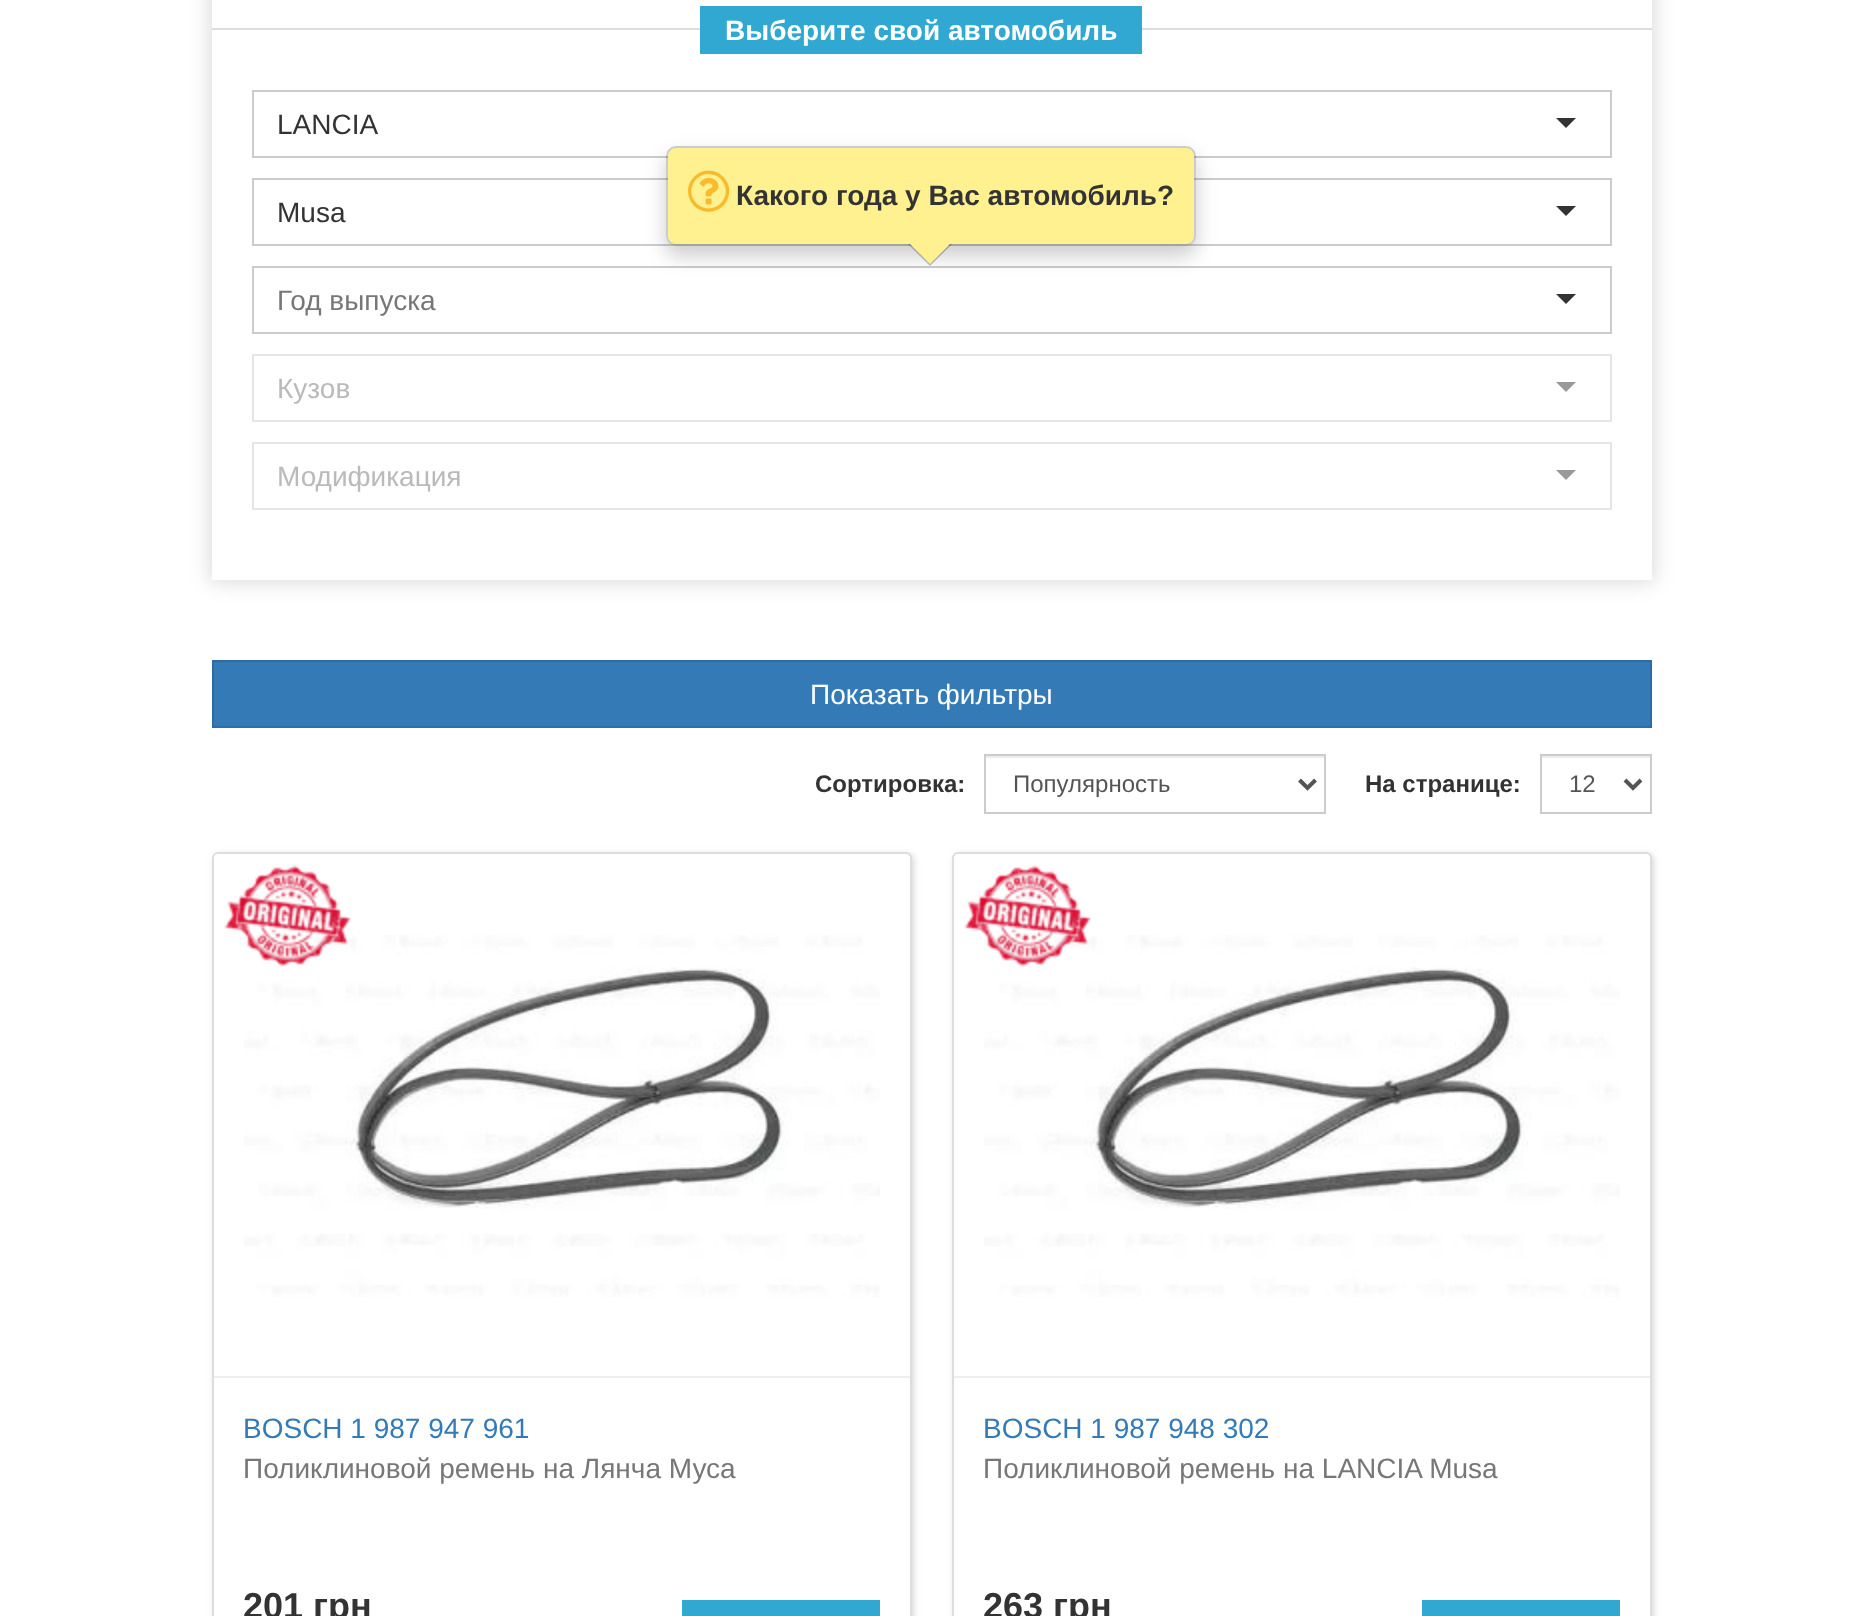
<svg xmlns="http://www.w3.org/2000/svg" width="1862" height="1616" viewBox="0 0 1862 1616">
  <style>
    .t1 { font: bold 28px Liberation Sans; fill: #fff; }
    .t2 { font: 28px Liberation Sans; fill: #333; }
    .t3 { font: bold 28px Liberation Sans; fill: #333; }
    .t4 { font: 28px Liberation Sans; fill: #777; }
    .t5 { font: 28px Liberation Sans; fill: #bababa; }
    .t6 { font: 28px Liberation Sans; fill: #fff; }
    .t7 { font: bold 24px Liberation Sans; fill: #333; }
    .t8 { font: 24px Liberation Sans; fill: #555; }
    .t9 { font: 28px Liberation Sans; fill: #337ab7; }
    .t10 { font: bold 36px Liberation Sans; fill: #333; }
  </style>
  <defs>
    <clipPath id="clip1"><path d="M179 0H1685V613H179ZM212-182H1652V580H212Z" clip-rule="evenodd"/></clipPath>
    <clipPath id="clip2"><path d="M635 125H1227V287H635ZM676 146H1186C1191.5 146 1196 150.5 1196 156V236C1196 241.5 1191.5 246 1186 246H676C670.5 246 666 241.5 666 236V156C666 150.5 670.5 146 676 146Z" clip-rule="evenodd"/></clipPath>
  </defs>
  <rect width="100%" height="100%" fill="#fff"/>
  <g clip-path="url(#clip1)">
    <rect x="210" y="-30" width="1444" height="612" fill="#00000026" filter="blur(10px)"/>
  </g>
  <rect x="212" y="28" width="1440" height="2" fill="#ddd"/>
  <rect x="700" y="6" width="442" height="48" fill="#31a8d2"/>
  <text x="725" y="40" class="t1">Выберите свой автомобиль</text>
  <rect x="253" y="91" width="1358" height="66" fill="none" stroke="#ccc" stroke-width="2"/>
  <text x="277" y="134" class="t2">LANCIA</text>
  <path d="M1556 118H1576L1566 128Z" fill="#333"/>
  <rect x="253" y="179" width="1358" height="66" fill="none" stroke="#ccc" stroke-width="2"/>
  <text x="277" y="222" class="t2">Musa</text>
  <path d="M1556 206H1576L1566 216Z" fill="#333"/>
  <rect x="253" y="267" width="1358" height="66" fill="none" stroke="#ccc" stroke-width="2"/>
  <g clip-path="url(#clip2)">
    <rect x="666" y="156" width="530" height="100" rx="10" fill="#00000033" filter="blur(10px)"/>
  </g>
  <rect x="668" y="148" width="526" height="96" rx="8" fill="#fff18f"/>
  <rect x="667" y="147" width="528" height="98" rx="9" fill="none" stroke="#00000033" stroke-width="2"/>
  <image x="688" y="170" width="42" height="42" href="images/1.png"/>
  <text x="736" y="205" class="t3">Какого года у Вас автомобиль?</text>
  <path d="M908 244H952L930 266Z" fill="#00000040"/>
  <path d="M910 244H950L930 264Z" fill="#fff18f"/>
  <text x="277" y="310" class="t4">Год выпуска</text>
  <path d="M1556 294H1576L1566 304Z" fill="#333"/>
  <rect x="253" y="355" width="1358" height="66" fill="none" stroke="#e6e6e6" stroke-width="2"/>
  <text x="277" y="398" class="t5">Кузов</text>
  <path d="M1556 382H1576L1566 392Z" fill="#999"/>
  <rect x="253" y="443" width="1358" height="66" fill="none" stroke="#e6e6e6" stroke-width="2"/>
  <text x="277" y="486" class="t5">Модификация</text>
  <path d="M1556 470H1576L1566 480Z" fill="#999"/>
  <rect x="213" y="661" width="1438" height="66" fill="#337ab7" stroke="#2e6da4" stroke-width="2"/>
  <text x="810" y="704" class="t6">Показать фильтры</text>
  <text x="815" y="792" class="t7">Сортировка:</text>
  <rect x="986" y="756" width="338" height="2" fill="#ececec"/>
  <rect x="985" y="755" width="340" height="58" fill="none" stroke="#ccc" stroke-width="2"/>
  <path d="M1299.5 780L1307.5 788L1315.5 780" fill="none" stroke="#555" stroke-width="4"/>
  <text x="1013" y="792" class="t8">Популярность</text>
  <text x="1365" y="792" class="t7">На странице:</text>
  <rect x="1542" y="756" width="108" height="2" fill="#ececec"/>
  <rect x="1541" y="755" width="110" height="58" fill="none" stroke="#ccc" stroke-width="2"/>
  <path d="M1625 780L1633 788L1641 780" fill="none" stroke="#555" stroke-width="4"/>
  <text x="1569" y="792" class="t8">12</text>
  <rect x="214" y="854" width="700" height="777" rx="6" fill="#00000026" filter="blur(3px)"/>
  <rect x="213" y="853" width="698" height="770" rx="5" fill="#fff" stroke="#ddd" stroke-width="2"/>
  <image x="244" y="935" width="636" height="362" href="images/3.png"/>
  <image x="224" y="865" width="127" height="102" href="images/2.png"/>
  <rect x="214" y="1376" width="696" height="2" fill="#eee"/>
  <text x="243" y="1438" class="t9">BOSCH 1 987 947 961</text>
  <text x="243" y="1478" class="t4">Поликлиновой ремень на Лянча Муса</text>
  <text x="243" y="1618" class="t10">201 грн</text>
  <rect x="682" y="1600" width="198" height="16" fill="#31a8d2"/>
  <rect x="954" y="854" width="700" height="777" rx="6" fill="#00000026" filter="blur(3px)"/>
  <rect x="953" y="853" width="698" height="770" rx="5" fill="#fff" stroke="#ddd" stroke-width="2"/>
  <image x="984" y="935" width="636" height="362" href="images/3.png"/>
  <image x="964" y="865" width="127" height="102" href="images/2.png"/>
  <rect x="954" y="1376" width="696" height="2" fill="#eee"/>
  <text x="983" y="1438" class="t9">BOSCH 1 987 948 302</text>
  <text x="983" y="1478" class="t4">Поликлиновой ремень на LANCIA Musa</text>
  <text x="983" y="1618" class="t10">263 грн</text>
  <rect x="1422" y="1600" width="198" height="16" fill="#31a8d2"/>
</svg>
